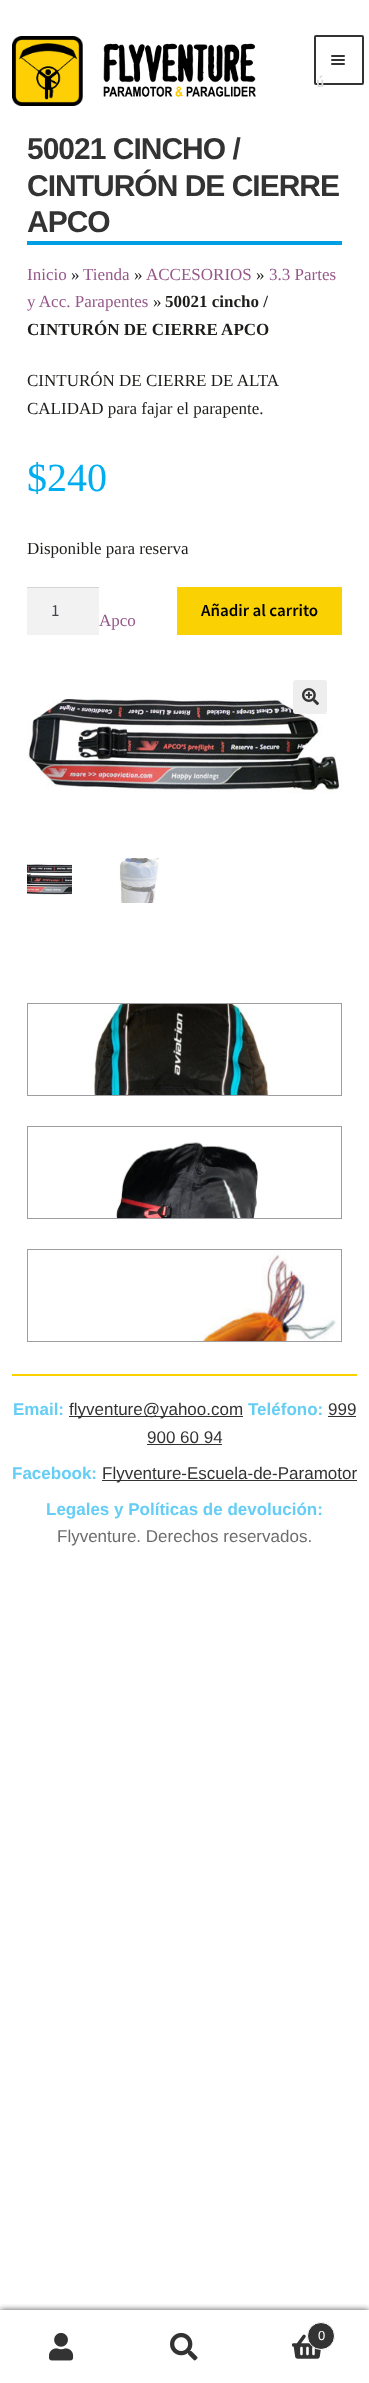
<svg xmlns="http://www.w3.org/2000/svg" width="369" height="2383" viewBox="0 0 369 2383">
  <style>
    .t1 { font: 600 15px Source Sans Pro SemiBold; fill: #dcdcdc; }
    .t2 { font: bold 30px Liberation Sans; letter-spacing: -1px; fill: #333; }
    .t3 { font: 17px Liberation Serif; fill: #96588a; }
    .t4 { font: 17px Liberation Serif; fill: #1d1d1b; }
    .t5 { font: bold 17px Liberation Serif; fill: #1d1d1b; }
    .t6 { font: 40px Liberation Serif; fill: #00aef0; }
    .t7 { font: 17px Source Sans Pro; fill: #43454b; }
    .t8 { font: 600 17px Source Sans Pro SemiBold; fill: #000; }
    .t9 { font: bold 17px Liberation Sans; fill: #66cef5; }
    .t10 { font: 17px Liberation Sans; fill: #333; }
    .t11 { font: 17px Liberation Sans; fill: #6d6d6d; }
    .t12 { font: 13px Liberation Sans; fill: #fff; }
  </style>
  <defs>
    <clipPath id="clip1"><rect x="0" y="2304" width="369" height="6"/></clipPath>
  </defs>
  <rect width="100%" height="100%" fill="#fff"/>
  <image x="12" y="36" width="244" height="70" href="images/1.png"/>
  <image x="37" y="67" width="23" height="22" href="images/2.png"/>
  <rect x="315" y="36" width="48" height="48" rx="1" fill="none" stroke="#333" stroke-width="2"/>
  <rect x="331" y="55" width="14" height="2" rx="1" fill="#333"/>
  <rect x="331" y="63" width="14" height="2" rx="1" fill="#333"/>
  <rect x="331" y="59" width="14" height="2" rx="1" fill="#333"/>
  <text x="316" y="87" class="t1">ú</text>
  <rect x="27" y="241" width="315" height="4" fill="#009fe3"/>
  <text x="27" y="159" class="t2">50021 CINCHO /</text>
  <text x="27" y="196" class="t2">CINTURÓN DE CIERRE</text>
  <text x="27" y="232" class="t2">APCO</text>
  <text x="27" y="280" class="t3">Inicio</text>
  <text x="71" y="280" class="t4">»</text>
  <text x="83" y="280" class="t3">Tienda</text>
  <text x="134" y="280" class="t4">»</text>
  <text x="146" y="280" class="t3">ACCESORIOS</text>
  <text x="256" y="280" class="t4">»</text>
  <text x="269" y="280" class="t3">3.3 Partes</text>
  <text x="27" y="307" class="t3">y Acc. Parapentes</text>
  <text x="153" y="307" class="t4">»</text>
  <text x="165" y="307" class="t5">50021 cincho /</text>
  <text x="27" y="335" class="t5">CINTURÓN DE CIERRE APCO</text>
  <text x="27" y="386" class="t4">CINTURÓN DE CIERRE DE ALTA</text>
  <text x="27" y="414" class="t4">CALIDAD para fajar el parapente.</text>
  <text x="27" y="491" class="t6">$240</text>
  <text x="27" y="554" class="t4">Disponible para reserva</text>
  <rect x="27" y="588" width="72" height="47" fill="#f2f2f2"/>
  <rect x="27" y="587" width="72" height="1" fill="#d4d4d4"/>
  <text x="51" y="616" class="t7">1</text>
  <rect x="177" y="587" width="165" height="48" fill="#fad203"/>
  <text x="201" y="616" class="t8">Añadir al carrito</text>
  <text x="99" y="626" class="t3">Apco</text>
  <image x="27" y="698" width="315" height="95" href="images/4.png"/>
  <rect x="293" y="680" width="34" height="34" rx="3" fill="#eee"/>
  <image x="302" y="688" width="17" height="18" href="images/3.png"/>
  <image x="27" y="863" width="45" height="32" href="images/5.png"/>
  <image x="119" y="858" width="41" height="45" href="images/6.png"/>
  <rect x="27.5" y="1003.5" width="314" height="92" fill="none" stroke="#9e9da2"/>
  <image x="28" y="1004" width="313" height="91" href="images/7.png"/>
  <rect x="27.5" y="1126.5" width="314" height="92" fill="none" stroke="#9e9da2"/>
  <image x="28" y="1127" width="313" height="91" href="images/8.png"/>
  <rect x="27.5" y="1249.5" width="314" height="92" fill="none" stroke="#9e9da2"/>
  <image x="28" y="1250" width="313" height="91" href="images/9.png"/>
  <rect x="12" y="1374" width="345" height="2" fill="#f9d200"/>
  <text x="13" y="1415" class="t9">Email:</text>
  <rect x="69" y="1416" width="174" height="1" fill="#333"/>
  <text x="69" y="1415" class="t10">flyventure@yahoo.com</text>
  <text x="248" y="1415" class="t9">Teléfono:</text>
  <text x="328" y="1415" class="t10">999</text>
  <rect x="328" y="1416" width="28" height="1" fill="#333"/>
  <text x="147" y="1443" class="t10">900 60 94</text>
  <rect x="147" y="1444" width="75" height="1" fill="#333"/>
  <text x="12" y="1479" class="t9">Facebook:</text>
  <rect x="102" y="1480" width="255" height="1" fill="#333"/>
  <text x="102" y="1479" class="t10">Flyventure-Escuela-de-Paramotor</text>
  <text x="46" y="1515" class="t9">Legales y Políticas de devolución:</text>
  <text x="57" y="1542" class="t11">Flyventure. Derechos reservados.</text>
  <g clip-path="url(#clip1)">
    <rect x="0" y="2310" width="369" height="73" fill="#000000b3" filter="blur(3px)"/>
  </g>
  <image x="49" y="2332" width="25" height="29" href="images/10.png"/>
  <image x="170" y="2332" width="28" height="29" href="images/11.png"/>
  <image x="292" y="2334" width="29" height="25" href="images/12.png"/>
  <circle cx="321" cy="2336" r="13.5" fill="#333" stroke="#fff"/>
  <text x="318" y="2340" class="t12">0</text>
</svg>
